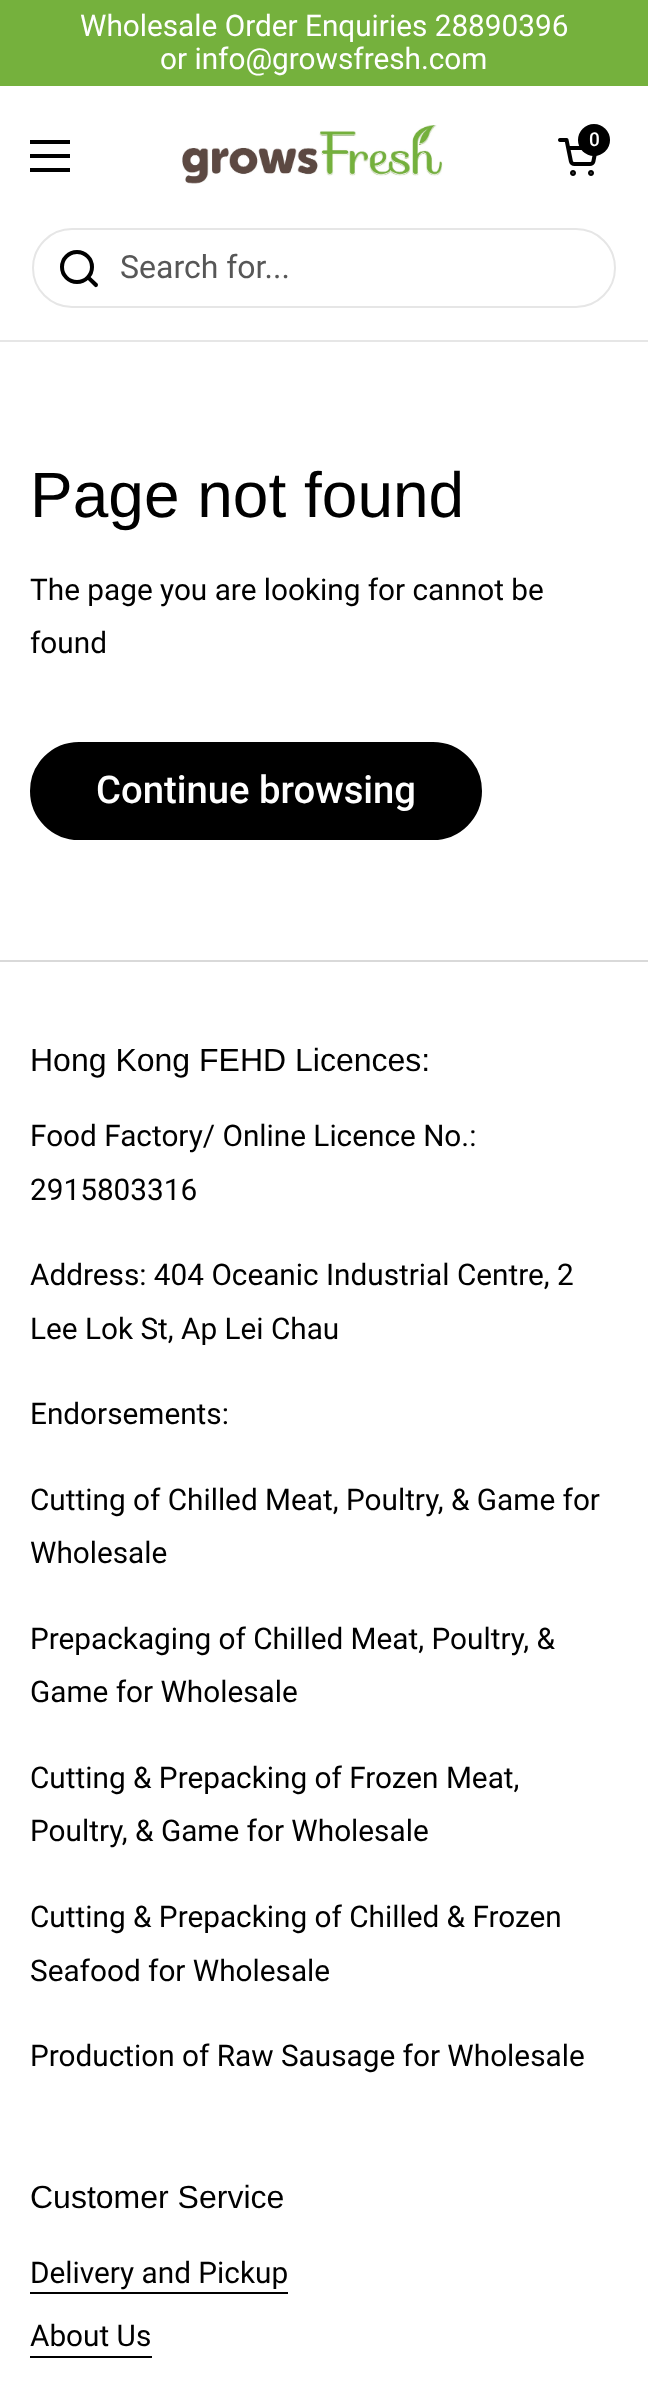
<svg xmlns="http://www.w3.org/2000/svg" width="648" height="2394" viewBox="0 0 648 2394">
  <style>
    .t1 { font: 29.75px Roboto; fill: #fff; }
    .t2 { font: 500 19px Roboto; fill: #fff; }
    .t3 { font: 32px Roboto; fill: #575757; }
    .t4 { font: 64px Liberation Sans; fill: #000; }
    .t5 { font: 29.75px Roboto; fill: #000; }
    .t6 { font: 500 38.25px Roboto; fill: #fff; }
    .t7 { font: 32px Liberation Sans; fill: #000; }
  </style>
  <rect width="100%" height="100%" fill="#fff"/>
  <rect x="0" y="0" width="648" height="86" fill="#75b13d"/>
  <text x="80" y="36" class="t1">Wholesale Order Enquiries 28890396</text>
  <text x="160" y="69" class="t1">or info@growsfresh.com</text>
  <rect x="30" y="140" width="40" height="4" fill="#000"/>
  <rect x="30" y="154" width="40" height="4" fill="#000"/>
  <rect x="30" y="168" width="40" height="4" fill="#000"/>
  <image x="182" y="125" width="261" height="59" href="images/1.png"/>
  <image x="558" y="138" width="39" height="38" href="images/2.png"/>
  <circle cx="594" cy="140" r="16" fill="#000"/>
  <text x="589" y="146" class="t2">0</text>
  <rect x="0" y="340" width="648" height="2" fill="#e6e6e6"/>
  <rect x="33" y="229" width="582" height="78" rx="39" fill="none" stroke="#e6e6e6" stroke-width="2"/>
  <circle cx="77" cy="267" r="15" fill="none" stroke="#000" stroke-width="4"/>
  <path d="M90 276.5L89 275L86 278L87.5 279.5ZM94.5 286.5C96.5 288.5 99 285.5 97.5 283.5ZM87.5 279.5L94.5 286.5L97.5 283.5L90 276.5Z" fill="#000"/>
  <text x="120" y="278" class="t3">Search for...</text>
  <text x="30" y="517" class="t4">Page not found</text>
  <text x="30" y="600" class="t5">The page you are looking for cannot be</text>
  <text x="30" y="653" class="t5">found</text>
  <rect x="31" y="743" width="450" height="96" rx="48" fill="#000" stroke="#000" stroke-width="2"/>
  <text x="96" y="803" class="t6">Continue browsing</text>
  <rect x="0" y="960" width="648" height="2" fill="#d9d9d9"/>
  <text x="30" y="1071" class="t7">Hong Kong FEHD Licences:</text>
  <text x="30" y="1146" class="t5">Food Factory/ Online Licence No.:</text>
  <text x="30" y="1200" class="t5">2915803316</text>
  <text x="30" y="1285" class="t5">Address: 404 Oceanic Industrial Centre, 2</text>
  <text x="30" y="1339" class="t5">Lee Lok St, Ap Lei Chau</text>
  <text x="30" y="1424" class="t5">Endorsements:</text>
  <text x="30" y="1510" class="t5">Cutting of Chilled Meat, Poultry, &amp; Game for</text>
  <text x="30" y="1563" class="t5">Wholesale</text>
  <text x="30" y="1649" class="t5">Prepackaging of Chilled Meat, Poultry, &amp;</text>
  <text x="30" y="1702" class="t5">Game for Wholesale</text>
  <text x="30" y="1788" class="t5">Cutting &amp; Prepacking of Frozen Meat,</text>
  <text x="30" y="1841" class="t5">Poultry, &amp; Game for Wholesale</text>
  <text x="30" y="1927" class="t5">Cutting &amp; Prepacking of Chilled &amp; Frozen</text>
  <text x="30" y="1981" class="t5">Seafood for Wholesale</text>
  <text x="30" y="2066" class="t5">Production of Raw Sausage for Wholesale</text>
  <text x="30" y="2208" class="t7">Customer Service</text>
  <text x="30" y="2283" class="t5">Delivery and Pickup</text>
  <rect x="30" y="2292" width="258" height="2" fill="#000"/>
  <text x="30" y="2346" class="t5">About Us</text>
  <rect x="30" y="2356" width="122" height="2" fill="#000"/>
</svg>
